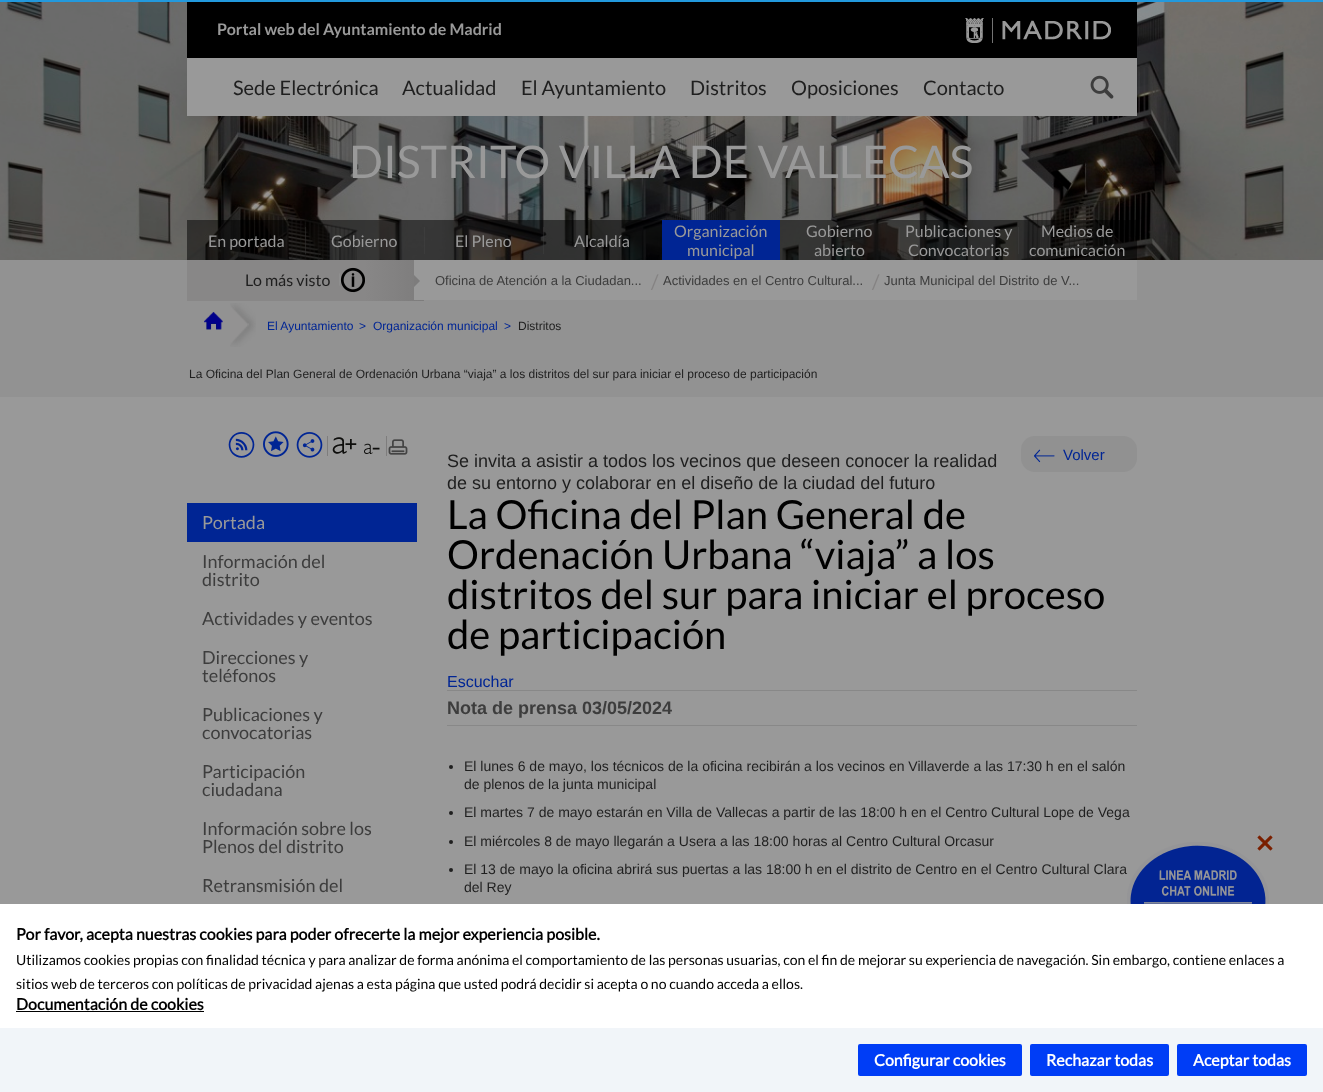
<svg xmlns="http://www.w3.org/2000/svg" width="1323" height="1092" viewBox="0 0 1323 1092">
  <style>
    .t1 { font: bold 16px Lato; fill: #999; }
    .t2 { font: 20px Lato; fill: #1f1f1f; }
    .t3 { font: 45px Lato; fill: #999; }
    .t4 { font: 16px Lato; fill: #999; }
    .t5 { font: 16px Lato; fill: #1f1f1f; }
    .t6 { font: 13px Liberation Sans; fill: #3d3d3d; }
    .t7 { font: 20px Lato; fill: #858383; }
    .t8 { font: 12px Liberation Sans; fill: #002594; }
    .t9 { font: 12px Liberation Sans; fill: #1f1f1f; }
    .t10 { font: 27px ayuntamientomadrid; fill: #002594; }
    .t11 { font: 18px Lato; fill: #999; }
    .t12 { font: 18px Lato; fill: #3d3d3d; }
    .t13 { font: 18px Liberation Sans; fill: #1f1f1f; }
    .t14 { font: 15px Liberation Sans; fill: #002594; }
    .t15 { font: 40px Lato; fill: #000; }
    .t16 { font: 16px Liberation Sans; fill: #002594; }
    .t17 { font: bold 18px Liberation Sans; fill: #3d3d3d; }
    .t18 { font: 14px Liberation Sans; fill: #1f1f1f; }
    .t19 { font: bold 16px 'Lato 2'; fill: #000; }
    .t20 { font: 14px Lato; fill: #000; }
    .t21 { font: bold 16px 'Lato 2'; fill: #fff; }
  </style>
  <defs>
    <linearGradient id="g1" gradientUnits="userSpaceOnUse" x1="187" y1="281" x2="424" y2="281"><stop offset="0" stop-color="#888787"/><stop offset="0.75" stop-color="#888787"/><stop offset="1" stop-color="#7d7c7c"/></linearGradient>
  </defs>
  <rect width="100%" height="100%" fill="#999"/>
  <rect x="0" y="0" width="1323" height="2" fill="#29d"/>
  <image x="0" y="2" width="1323" height="258" href="images/1.png"/>
  <rect x="187" y="2" width="950" height="56" fill="#000"/>
  <text x="217" y="35" class="t1">Portal web del Ayuntamiento de Madrid</text>
  <image x="965" y="18" width="146" height="25" href="images/2.png"/>
  <rect x="187" y="58" width="950" height="58" fill="#999"/>
  <text x="233" y="95" class="t2">Sede Electrónica</text>
  <text x="402" y="95" class="t2">Actualidad</text>
  <text x="521" y="95" class="t2">El Ayuntamiento</text>
  <text x="690" y="95" class="t2">Distritos</text>
  <text x="791" y="95" class="t2">Oposiciones</text>
  <text x="923" y="95" class="t2">Contacto</text>
  <image x="1090" y="75" width="24" height="24" href="images/3.png"/>
  <text x="349" y="178" class="t3">DISTRITO VILLA DE VALLECAS</text>
  <rect x="187" y="220" width="118" height="40" fill="#00000082"/>
  <text x="208" y="247" class="t4">En portada</text>
  <rect x="305" y="227" width="1" height="27" fill="#9999994d"/>
  <rect x="305" y="220" width="119" height="40" fill="#00000082"/>
  <text x="331" y="247" class="t4">Gobierno</text>
  <rect x="424" y="227" width="1" height="27" fill="#9999994d"/>
  <rect x="424" y="220" width="119" height="40" fill="#00000082"/>
  <text x="455" y="247" class="t4">El Pleno</text>
  <rect x="543" y="227" width="1" height="27" fill="#9999994d"/>
  <rect x="543" y="220" width="119" height="40" fill="#00000082"/>
  <text x="574" y="247" class="t4">Alcaldía</text>
  <rect x="662" y="220" width="118" height="40" fill="#002594"/>
  <text x="674" y="237" class="t4">Organización</text>
  <text x="687" y="256" class="t4">municipal</text>
  <rect x="780" y="220" width="119" height="40" fill="#00000082"/>
  <text x="806" y="237" class="t4">Gobierno</text>
  <rect x="899" y="227" width="1" height="27" fill="#9999994d"/>
  <text x="814" y="256" class="t4">abierto</text>
  <rect x="899" y="220" width="119" height="40" fill="#00000082"/>
  <text x="905" y="237" class="t4">Publicaciones y</text>
  <rect x="1018" y="227" width="1" height="27" fill="#9999994d"/>
  <text x="908" y="256" class="t4">Convocatorias</text>
  <rect x="1018" y="220" width="119" height="40" fill="#00000082"/>
  <text x="1041" y="237" class="t4">Medios de</text>
  <text x="1029" y="256" class="t4">comunicación</text>
  <rect x="0" y="260" width="1323" height="137" fill="#929292"/>
  <rect x="187" y="260" width="237" height="41" fill="url(#g1)"/>
  <text x="245" y="286" class="t5">Lo más visto</text>
  <image x="339" y="267" width="26" height="26" href="images/4.png"/>
  <rect x="414" y="260" width="723" height="40" fill="#999"/>
  <path d="M414 287V275L420 281Z" fill="#7d7c7c"/>
  <text x="435" y="285" class="t6">Oficina de Atención a la Ciudadan...</text>
  <text x="651" y="289" class="t7">/</text>
  <text x="663" y="285" class="t6">Actividades en el Centro Cultural...</text>
  <text x="872" y="289" class="t7">/</text>
  <text x="884" y="285" class="t6">Junta Municipal del Distrito de V...</text>
  <image x="204" y="312" width="19" height="18" href="images/5.png"/>
  <image x="230" y="303" width="26" height="44" href="images/6.png"/>
  <text x="267" y="330" class="t8">El Ayuntamiento</text>
  <text x="359" y="330" class="t8">&gt;</text>
  <text x="373" y="330" class="t8">Organización municipal</text>
  <text x="504" y="330" class="t8">&gt;</text>
  <text x="518" y="330" class="t9">Distritos</text>
  <text x="189" y="378" class="t9">La Oficina del Plan General de Ordenación Urbana “viaja” a los distritos del sur para iniciar el proceso de participación</text>
  <text x="228" y="457" class="t10">~</text>
  <image x="263" y="431" width="26" height="26" href="images/7.png"/>
  <image x="296" y="432" width="27" height="26" href="images/8.png"/>
  <rect x="327" y="436" width="1" height="20" fill="#7e7d7d"/>
  <image x="332" y="437" width="25" height="17" href="images/9.png"/>
  <image x="364" y="443" width="16" height="11" href="images/10.png"/>
  <rect x="386" y="436" width="1" height="20" fill="#7e7d7d"/>
  <image x="388" y="439" width="20" height="16" href="images/11.png"/>
  <rect x="187" y="503" width="230" height="39" fill="#002594"/>
  <text x="202" y="529" class="t11">Portada</text>
  <text x="202" y="568" class="t12">Información del</text>
  <text x="202" y="586" class="t12">distrito</text>
  <text x="202" y="625" class="t12">Actividades y eventos</text>
  <text x="202" y="664" class="t12">Direcciones y</text>
  <text x="202" y="682" class="t12">teléfonos</text>
  <text x="202" y="721" class="t12">Publicaciones y</text>
  <text x="202" y="739" class="t12">convocatorias</text>
  <text x="202" y="778" class="t12">Participación</text>
  <text x="202" y="796" class="t12">ciudadana</text>
  <text x="202" y="835" class="t12">Información sobre los</text>
  <text x="202" y="853" class="t12">Plenos del distrito</text>
  <text x="202" y="892" class="t12">Retransmisión del</text>
  <text x="447" y="467" class="t13">Se invita a asistir a todos los vecinos que deseen conocer la realidad</text>
  <text x="447" y="489" class="t13">de su entorno y colaborar en el diseño de la ciudad del futuro</text>
  <rect x="1021" y="436" width="116" height="36" rx="14" fill="#919191"/>
  <image x="1034" y="449" width="21" height="14" href="images/12.png"/>
  <text x="1063" y="460" class="t14">Volver</text>
  <text x="447" y="529" class="t15">La Oficina del Plan General de</text>
  <text x="447" y="569" class="t15">Ordenación Urbana “viaja” a los</text>
  <text x="447" y="609" class="t15">distritos del sur para iniciar el proceso</text>
  <text x="447" y="649" class="t15">de participación</text>
  <text x="447" y="687" class="t16">Escuchar</text>
  <rect x="447" y="690" width="690" height="1" fill="#888"/>
  <rect x="447" y="725" width="690" height="1" fill="#888"/>
  <text x="447" y="714" class="t17">Nota de prensa 03/05/2024</text>
  <circle cx="451" cy="767" r="2" fill="#1f1f1f"/>
  <text x="464" y="771" class="t18">El lunes 6 de mayo, los técnicos de la oficina recibirán a los vecinos en Villaverde a las 17:30 h en el salón</text>
  <text x="464" y="789" class="t18">de plenos de la junta municipal</text>
  <circle cx="451" cy="813" r="2" fill="#1f1f1f"/>
  <text x="464" y="817" class="t18">El martes 7 de mayo estarán en Villa de Vallecas a partir de las 18:00 h en el Centro Cultural Lope de Vega</text>
  <circle cx="451" cy="842" r="2" fill="#1f1f1f"/>
  <text x="464" y="846" class="t18">El miércoles 8 de mayo llegarán a Usera a las 18:00 horas al Centro Cultural Orcasur</text>
  <circle cx="451" cy="870" r="2" fill="#1f1f1f"/>
  <text x="464" y="874" class="t18">El 13 de mayo la oficina abrirá sus puertas a las 18:00 h en el distrito de Centro en el Centro Cultural Clara</text>
  <text x="464" y="892" class="t18">del Rey</text>
  <image x="1127" y="842" width="142" height="62" href="images/14.png"/>
  <image x="1257" y="835" width="16" height="16" href="images/13.png"/>
  <rect x="0" y="904" width="1323" height="124" fill="#fff"/>
  <text x="16" y="940" class="t19">Por favor, acepta nuestras cookies para poder ofrecerte la mejor experiencia posible.</text>
  <text x="16" y="965" class="t20">Utilizamos cookies propias con finalidad técnica y para analizar de forma anónima el comportamiento de las personas usuarias, con el fin de mejorar su experiencia de navegación. Sin embargo, contiene enlaces a</text>
  <text x="16" y="989" class="t20">sitios web de terceros con políticas de privacidad ajenas a esta página que usted podrá decidir si acepta o no cuando acceda a ellos.</text>
  <text x="16" y="1010" class="t19">Documentación de cookies</text>
  <rect x="16" y="1011" width="188" height="1" fill="#000"/>
  <rect x="0" y="1028" width="1323" height="64" fill="#f1f5f9"/>
  <rect x="858" y="1044" width="164" height="32" rx="2" fill="#003df6"/>
  <text x="874" y="1066" class="t21">Configurar cookies</text>
  <rect x="1030" y="1044" width="139" height="32" rx="2" fill="#003df6"/>
  <text x="1046" y="1066" class="t21">Rechazar todas</text>
  <rect x="1177" y="1044" width="130" height="32" rx="2" fill="#003df6"/>
  <text x="1193" y="1066" class="t21">Aceptar todas</text>
</svg>
